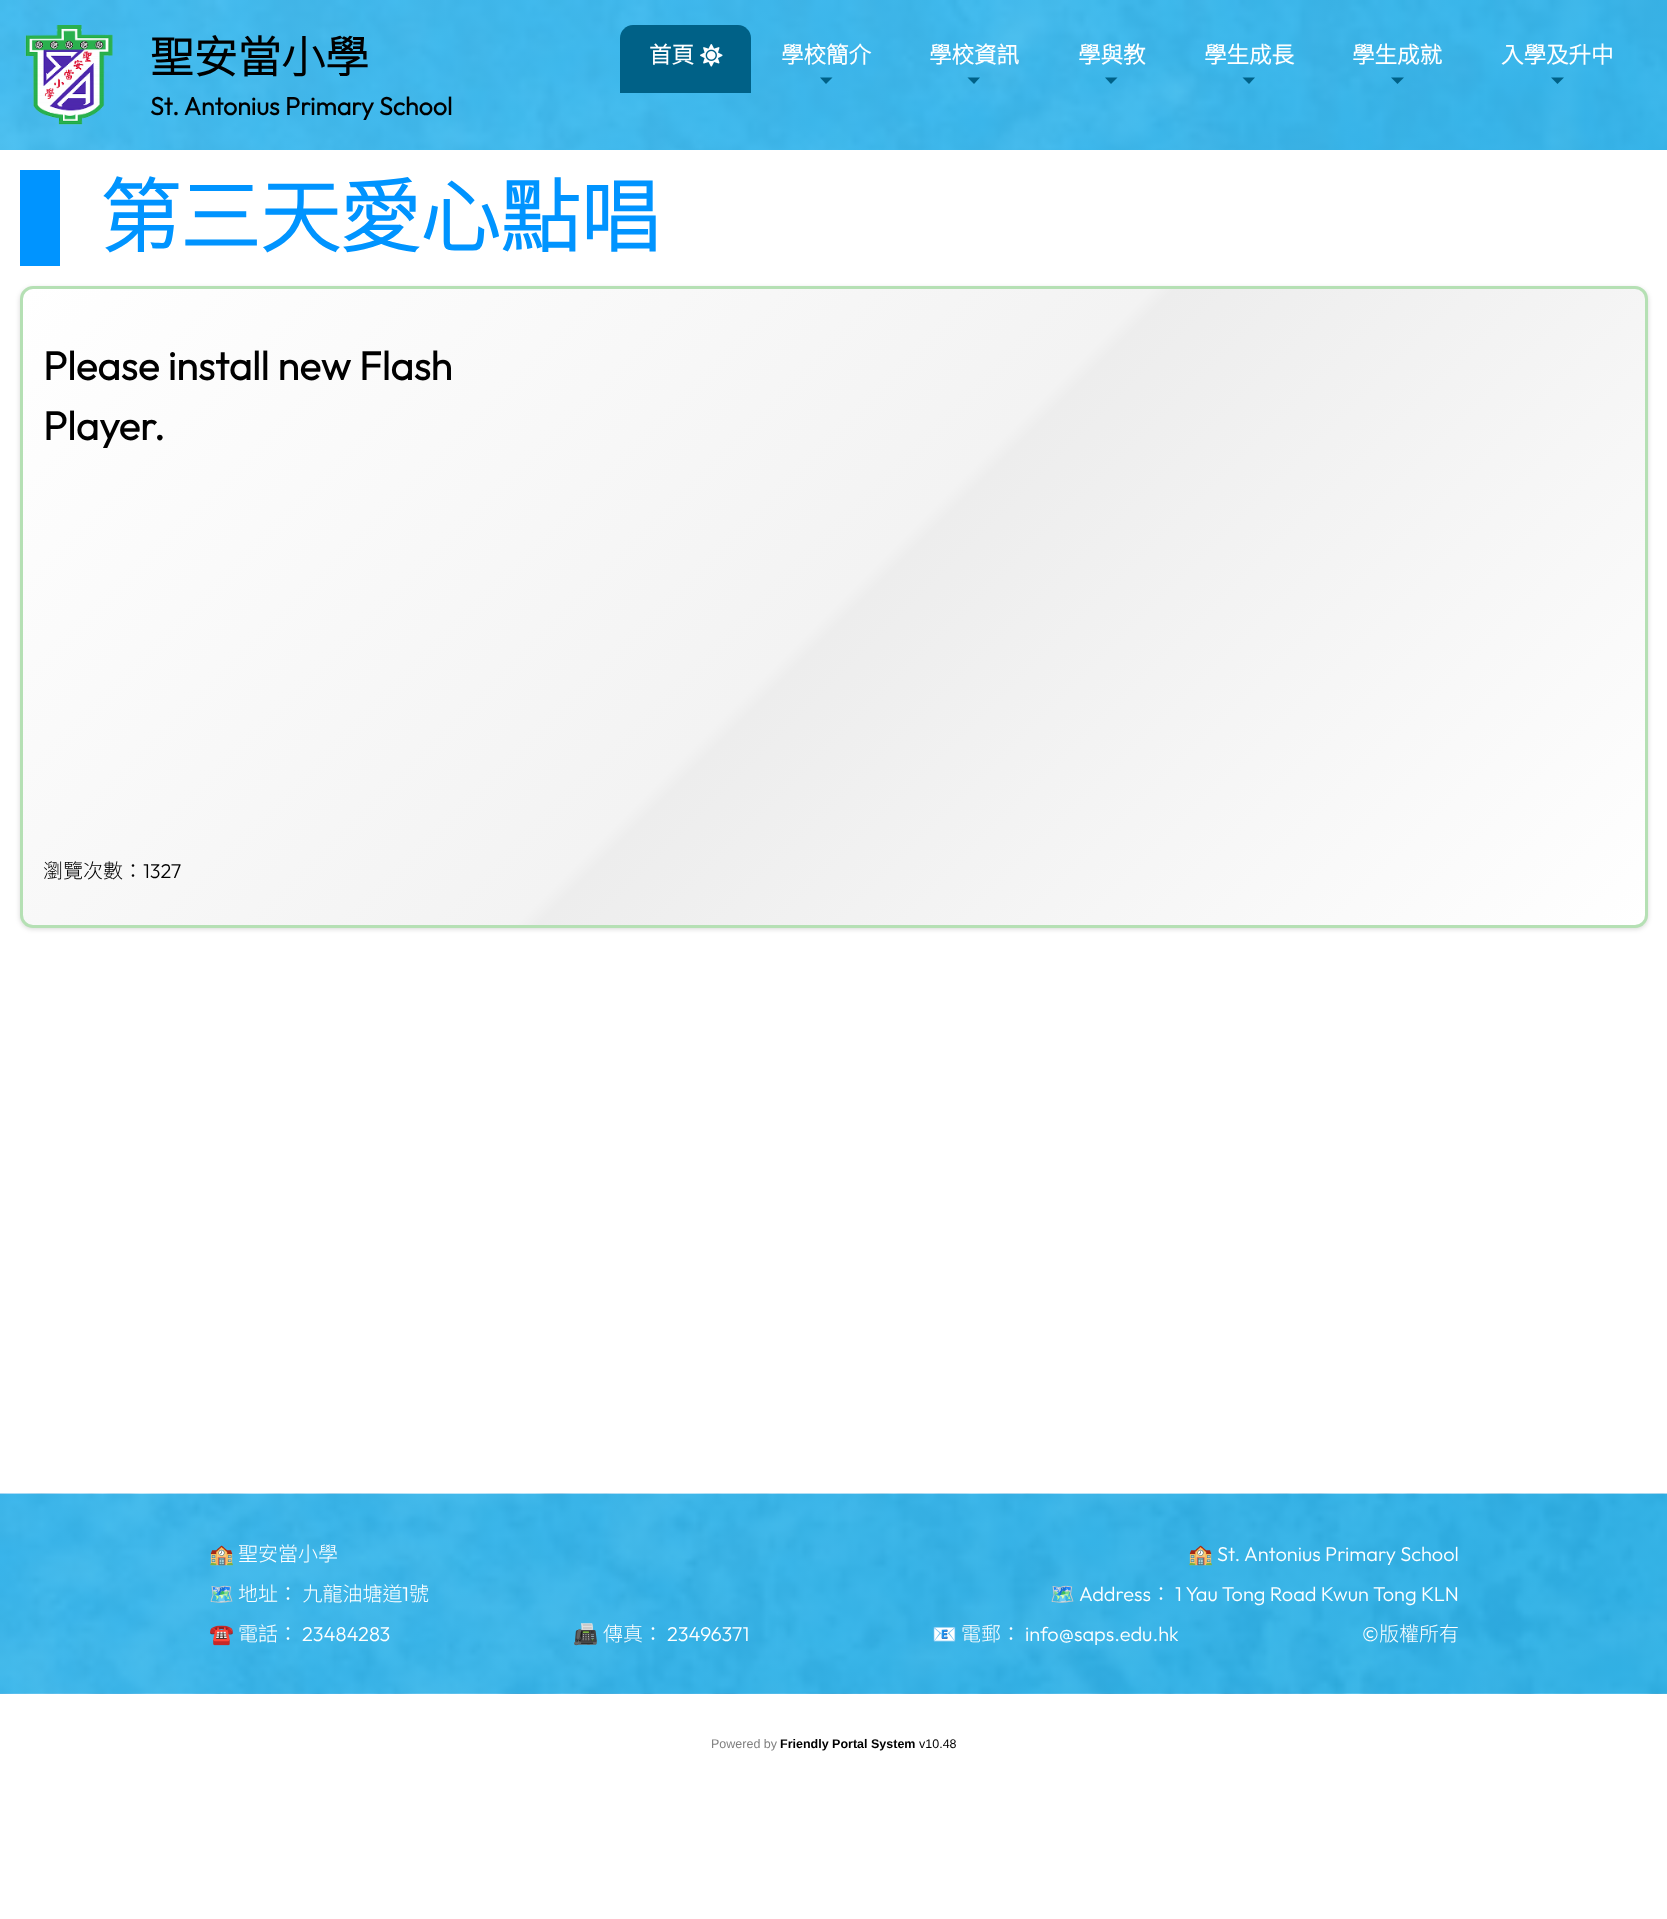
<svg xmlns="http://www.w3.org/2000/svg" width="1667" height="1919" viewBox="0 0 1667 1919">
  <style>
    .t1 { font: bold 43.75px Noto Sans HK; fill: #000; }
    .t2 { font: bold 25px Outfit; fill: #000; }
    .t3 { font: bold 22.5px Noto Sans HK; fill: #fff; }
    .t4 { font: bold 80px Noto Sans HK; fill: #0094ff; }
    .t5 { font: bold 40px Outfit; fill: #000; }
    .t6 { font: 100 20px Noto Sans HK; fill: #000; }
    .t7 { font: 100 20px Outfit; fill: #000; }
    .t8 { font: 20px Noto Color Emoji; fill: #fff; }
    .t9 { font: 100 20px Noto Sans HK; fill: #fff; }
    .t10 { font: 100 20px Outfit; fill: #fff; }
    .t11 { font: 12.5px Liberation Sans; fill: #808080; }
    .t12 { font: bold 12.5px Liberation Sans; fill: #000; }
    .t13 { font: 12.5px Liberation Sans; fill: #000; }
  </style>
  <defs>
    <clipPath id="clip1"><rect x="20" y="286" width="1628" height="642" rx="13"/></clipPath>
    <linearGradient id="g1" gradientUnits="userSpaceOnUse" x1="269" y1="42" x2="1398" y2="1172"><stop offset="0" stop-color="#fff"/><stop offset="0.5" stop-color="#f3f3f3"/><stop offset="0.51" stop-color="#ededed"/><stop offset="1" stop-color="#fff"/></linearGradient>
  </defs>
  <rect width="100%" height="100%" fill="#fff"/>
  <image x="0" y="0" width="1667" height="150" href="images/1.png"/>
  <image x="25" y="25" width="88" height="100" href="images/2.png"/>
  <text x="150" y="73" class="t1">聖安當小學</text>
  <text x="150" y="115" class="t2">St. Antonius Primary School</text>
  <path d="M633 25H738C745 25 751 31 751 38V93H620V38C620 31 626 25 633 25Z" fill="#006187"/>
  <text x="649" y="63" class="t3">首頁</text>
  <image x="700" y="44" width="23" height="23" href="images/3.png"/>
  <text x="781" y="63" class="t3">學校簡介</text>
  <path d="M820 77.5H832.5L826 84Z" fill="#006187"/>
  <text x="929" y="63" class="t3">學校資訊</text>
  <path d="M967.5 77.5H980L974 84Z" fill="#006187"/>
  <text x="1078" y="63" class="t3">學與教</text>
  <path d="M1105 77.5H1117.5L1111 84Z" fill="#006187"/>
  <text x="1204" y="63" class="t3">學生成長</text>
  <path d="M1242.5 77.5H1255L1249 84Z" fill="#006187"/>
  <text x="1352" y="63" class="t3">學生成就</text>
  <path d="M1391 77.5H1404L1397.5 84Z" fill="#006187"/>
  <text x="1501" y="63" class="t3">入學及升中</text>
  <path d="M1551 77.5H1564L1557.5 84Z" fill="#006187"/>
  <rect x="20" y="170" width="40" height="96" fill="#0094ff"/>
  <text x="100" y="246" class="t4">第三天愛心點唱</text>
  <rect x="20" y="288" width="1628" height="641" rx="13" fill="#00000029" filter="blur(2.5px)"/>
  <g clip-path="url(#clip1)">
    <rect x="23" y="289" width="1622" height="636" fill="url(#g1)"/>
  </g>
  <rect x="21.5" y="287.5" width="1625" height="639" rx="11.5" fill="none" stroke="#b5e0b4" stroke-width="3"/>
  <text x="43" y="380" class="t5">Please install new Flash</text>
  <text x="43" y="440" class="t5">Player.</text>
  <text x="43" y="878" class="t6">瀏覽次數：</text>
  <text x="143" y="878" class="t7">1327</text>
  <image x="0" y="1493" width="1667" height="201" href="images/4.png"/>
  <text x="209" y="1561" class="t8">🏫</text>
  <text x="238" y="1561" class="t9">聖安當小學</text>
  <text x="1188" y="1561" class="t8">🏫</text>
  <text x="1217" y="1561" class="t10">St. Antonius Primary School</text>
  <text x="209" y="1601" class="t8">🗺️</text>
  <text x="238" y="1601" class="t9">地址： 九龍油塘道</text>
  <text x="402" y="1601" class="t10">1</text>
  <text x="409" y="1601" class="t9">號</text>
  <text x="1050" y="1601" class="t8">🗺️</text>
  <text x="1079" y="1601" class="t10">Address</text>
  <text x="1151" y="1601" class="t9">：</text>
  <text x="1175" y="1601" class="t10">1 Yau Tong Road Kwun Tong KLN</text>
  <text x="209" y="1641" class="t8">☎️</text>
  <text x="238" y="1641" class="t9">電話：</text>
  <text x="302" y="1641" class="t10">23484283</text>
  <text x="573" y="1641" class="t8">📠</text>
  <text x="603" y="1641" class="t9">傳真：</text>
  <text x="667" y="1641" class="t10">23496371</text>
  <text x="932" y="1641" class="t8">📧</text>
  <text x="961" y="1641" class="t9">電郵：</text>
  <text x="1025" y="1641" class="t10">info@saps.edu.hk</text>
  <text x="1362" y="1641" class="t10">©</text>
  <text x="1379" y="1641" class="t9">版權所有</text>
  <text x="711" y="1748" class="t11">Powered by</text>
  <text x="780" y="1748" class="t12">Friendly Portal System</text>
  <text x="919" y="1748" class="t13">v10.48</text>
</svg>
